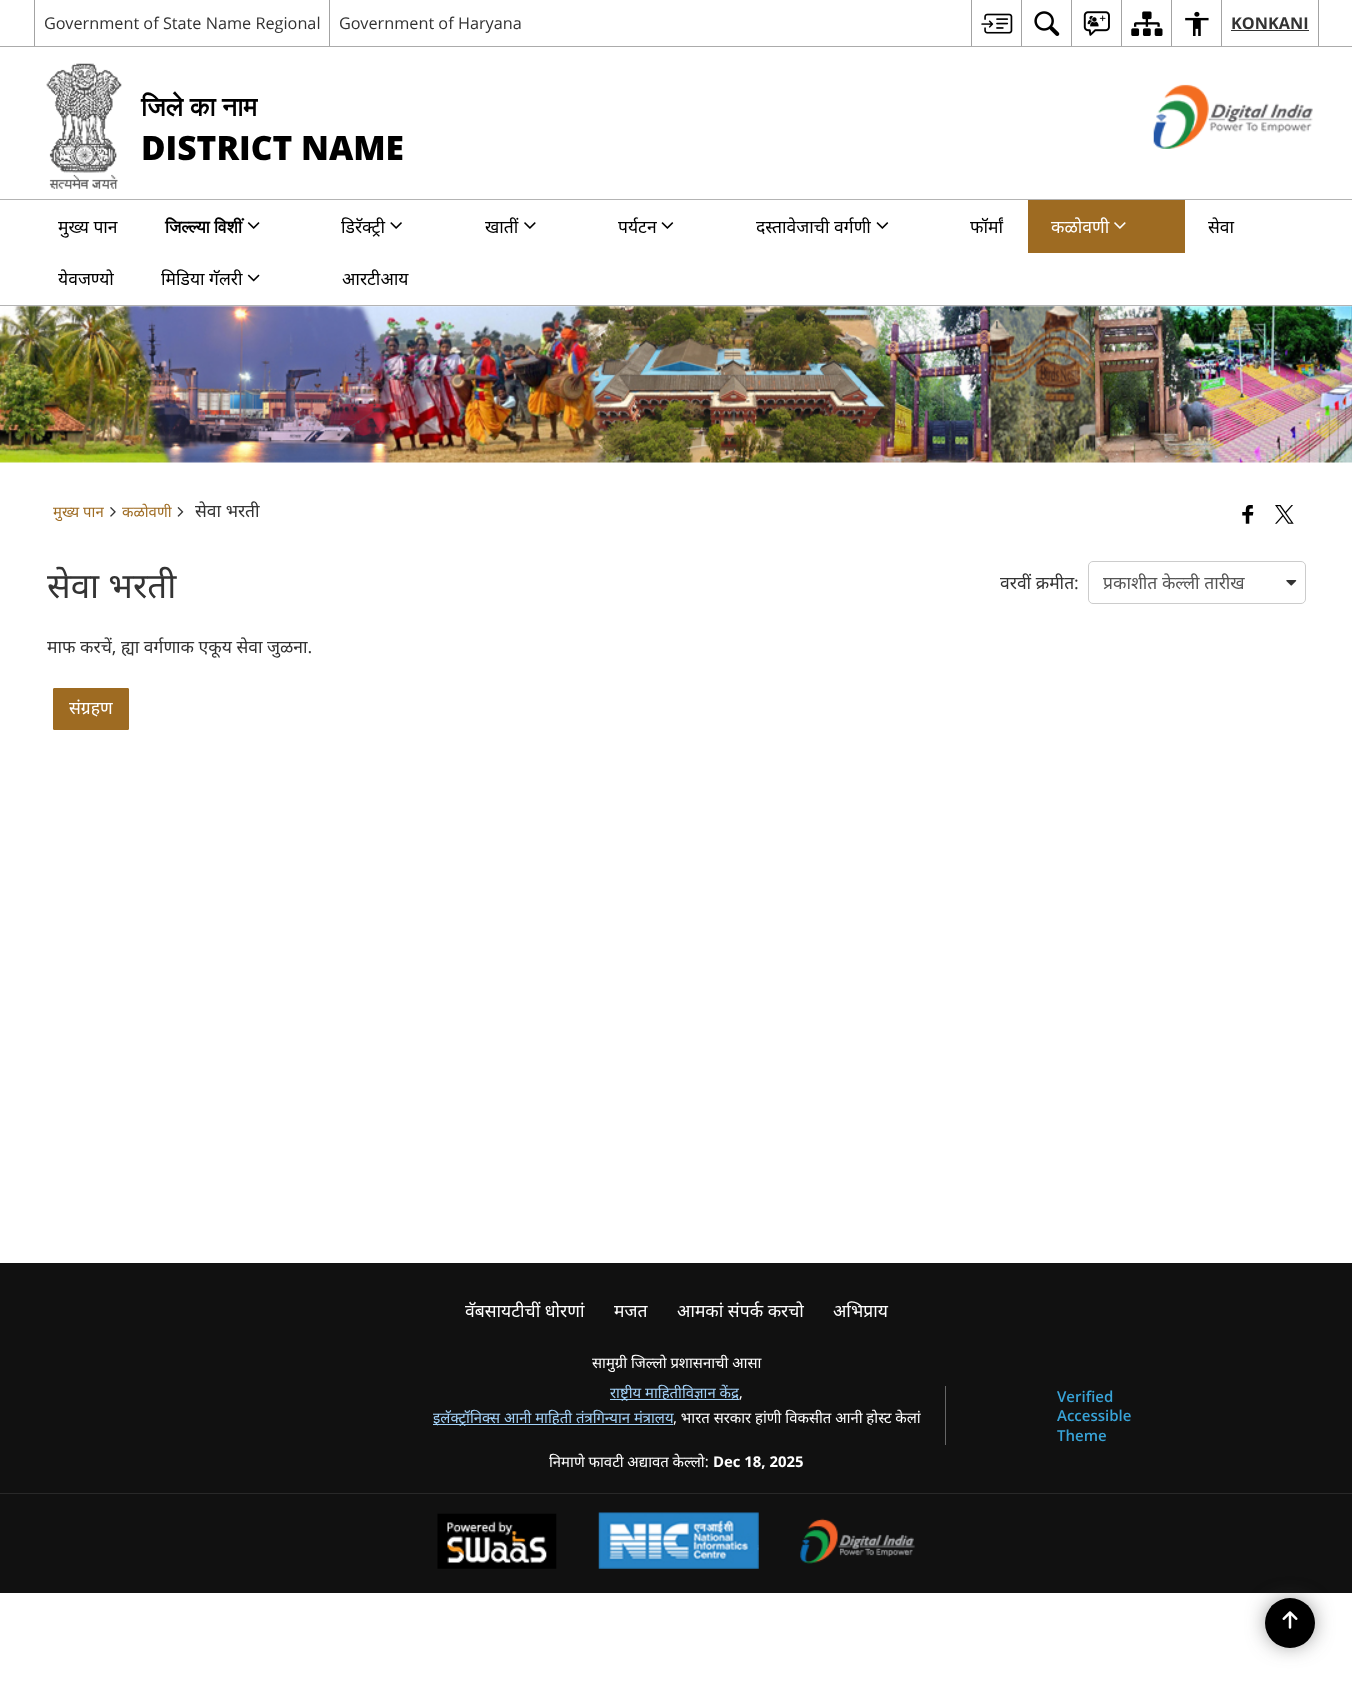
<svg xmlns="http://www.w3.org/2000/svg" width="1352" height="1684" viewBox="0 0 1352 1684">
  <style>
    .t1 { font: 16.25px Open Sans; fill: #333; }
    .t2 { font: bold 16.25px Open Sans; fill: #333; }
    .t3 { font: bold 26.5px FreeSans; fill: #000; }
    .t4 { font: 800 33.5px Open Sans; fill: #000; }
    .t5 { font: 17.5px Noto Sans; fill: #000; }
    .t6 { font: bold 17.5px FreeSans; fill: #000; }
    .t7 { font: 17.5px Noto Sans; fill: #fff; }
    .t8 { font: 14.9px Noto Sans; fill: #9e6b22; }
    .t9 { font: 17.5px Noto Sans; fill: #333; }
    .t10 { font: 35px Noto Sans; fill: #333; }
    .t11 { font: 17.5px Noto Sans; fill: #555; }
    .t12 { font: 14.9px Noto Sans; fill: #fff; }
    .t13 { font: 14.9px Noto Sans; fill: #a3d2f9; }
    .t14 { font: 14.9px Open Sans; fill: #fff; }
    .t15 { font: 600 15px Open Sans; fill: #38a3d7; }
    .t16 { font: bold 14.9px Open Sans; fill: #fff; }
  </style>
  <rect width="100%" height="100%" fill="#fff"/>
  <rect x="0" y="46" width="1352" height="1" fill="#ababab"/>
  <rect x="34" y="0" width="1" height="46" fill="#a3a3a3"/>
  <text x="44" y="29" class="t1">Government of State Name Regional</text>
  <rect x="329" y="0" width="1" height="46" fill="#a3a3a3"/>
  <text x="339" y="29" class="t1">Government of Haryana</text>
  <rect x="971" y="0" width="1" height="46" fill="#a3a3a3"/>
  <image x="981" y="13" width="32" height="21" href="images/1.png"/>
  <rect x="1021" y="0" width="1" height="46" fill="#a3a3a3"/>
  <image x="1034" y="11" width="26" height="25" href="images/2.png"/>
  <rect x="1071" y="0" width="1" height="46" fill="#a3a3a3"/>
  <image x="1083" y="11" width="27" height="25" href="images/3.png"/>
  <rect x="1121" y="0" width="1" height="46" fill="#a3a3a3"/>
  <image x="1131" y="11" width="32" height="25" href="images/4.png"/>
  <rect x="1171" y="0" width="1" height="46" fill="#a3a3a3"/>
  <image x="1185" y="11" width="24" height="25" href="images/5.png"/>
  <rect x="1318" y="0" width="1" height="46" fill="#a3a3a3"/>
  <rect x="1221" y="0" width="1" height="46" fill="#a3a3a3"/>
  <text x="1231" y="29" class="t2">KONKANI</text>
  <rect x="1231" y="30" width="78" height="1" fill="#333"/>
  <image x="46" y="63" width="76" height="126" href="images/6.png"/>
  <text x="141" y="116" class="t3">जिले का नाम</text>
  <text x="141" y="160" class="t4">DISTRICT NAME</text>
  <image x="1153" y="84" width="160" height="65" href="images/7.png"/>
  <rect x="0" y="199" width="1352" height="1" fill="#b3b3b3"/>
  <rect x="0" y="305" width="1352" height="1" fill="#b3b3b3"/>
  <text x="58" y="233" class="t5">मुख्य पान</text>
  <text x="165" y="233" class="t6">जिल्ल्या विशीं</text>
  <image x="247" y="222" width="13" height="7" href="images/8.png"/>
  <text x="341" y="233" class="t5">डिरॅक्ट्री</text>
  <image x="390" y="222" width="12" height="7" href="images/9.png"/>
  <text x="485" y="233" class="t5">खातीं</text>
  <image x="524" y="222" width="12" height="7" href="images/10.png"/>
  <text x="618" y="233" class="t5">पर्यटन</text>
  <image x="661" y="222" width="13" height="7" href="images/11.png"/>
  <text x="756" y="233" class="t5">दस्तावेजाची वर्गणी</text>
  <image x="876" y="222" width="13" height="7" href="images/11.png"/>
  <text x="970" y="233" class="t5">फॉर्मां</text>
  <rect x="1028" y="200" width="157" height="53" fill="#9e6b22"/>
  <text x="1051" y="233" class="t7">कळोवणी</text>
  <image x="1114" y="222" width="12" height="7" href="images/12.png"/>
  <text x="1208" y="233" class="t5">सेवा</text>
  <text x="58" y="285" class="t5">येवजण्यो</text>
  <text x="161" y="285" class="t5">मिडिया गॅलरी</text>
  <image x="247" y="274" width="13" height="8" href="images/13.png"/>
  <text x="342" y="285" class="t5">आरटीआय</text>
  <image x="0" y="306" width="1352" height="157" href="images/14.png"/>
  <text x="53" y="517" class="t8">मुख्य पान</text>
  <image x="110" y="507" width="6" height="10" href="images/15.png"/>
  <text x="122" y="517" class="t8">कळोवणी</text>
  <image x="177" y="507" width="7" height="10" href="images/16.png"/>
  <text x="195" y="517" class="t9">सेवा भरती</text>
  <image x="1242" y="505" width="12" height="19" href="images/17.png"/>
  <image x="1275" y="505" width="19" height="19" href="images/18.png"/>
  <text x="47" y="598" class="t10">सेवा भरती</text>
  <text x="1000" y="589" class="t9">वरवीं क्रमीत:</text>
  <image x="1286" y="580" width="11" height="6" href="images/19.png"/>
  <rect x="1088.5" y="561.5" width="217" height="42" rx="4.5" fill="none" stroke="#ccc"/>
  <text x="1103" y="589" class="t11">प्रकाशीत केल्ली तारीख</text>
  <text x="47" y="653" class="t9">माफ करचें, ह्या वर्गणाक एकूय सेवा जुळना.</text>
  <rect x="53.5" y="688.5" width="75" height="41" rx="0.5" fill="#9e6b22" stroke="#9e6b22"/>
  <text x="69" y="714" class="t7">संग्रहण</text>
  <rect x="0" y="1263" width="1352" height="330" fill="#111"/>
  <text x="465" y="1317" class="t7">वॅबसायटीचीं धोरणां</text>
  <text x="614" y="1317" class="t7">मजत</text>
  <text x="677" y="1317" class="t7">आमकां संपर्क करचो</text>
  <text x="833" y="1317" class="t7">अभिप्राय</text>
  <text x="592" y="1368" class="t12">सामुग्री जिल्लो प्रशासनाची आसा</text>
  <rect x="610" y="1399" width="129" height="1" fill="#a3d2f9"/>
  <text x="610" y="1398" class="t13">राष्ट्रीय माहितीविज्ञान केंद्र</text>
  <text x="739" y="1398" class="t14">,</text>
  <rect x="433" y="1424" width="240" height="1" fill="#a3d2f9"/>
  <text x="433" y="1423" class="t13">इलॅक्ट्रॉनिक्स आनी माहिती तंत्रगिन्यान मंत्रालय</text>
  <text x="673" y="1423" class="t12">, भारत सरकार हांणी विकसीत आनी होस्ट केलां</text>
  <rect x="945" y="1386" width="1" height="59" fill="#666"/>
  <text x="1057" y="1402" class="t15">Verified</text>
  <text x="1057" y="1421" class="t15">Accessible</text>
  <text x="1057" y="1441" class="t15">Theme</text>
  <text x="549" y="1467" class="t12">निमाणे फावटी अद्यावत केल्लो:</text>
  <text x="713" y="1467" class="t16">Dec 18, 2025</text>
  <rect x="0" y="1493" width="1352" height="1" fill="#292929"/>
  <image x="437" y="1513" width="120" height="56" href="images/20.png"/>
  <image x="598" y="1512" width="161" height="57" href="images/21.png"/>
  <image x="800" y="1518" width="115" height="46" href="images/22.png"/>
  <rect x="1271" y="1604" width="38" height="37" rx="18.5" fill="#3c3c3c" filter="blur(12px)"/>
  <circle cx="1290" cy="1623" r="25" fill="#000"/>
  <image x="1282" y="1611" width="16" height="18" href="images/23.png"/>
</svg>
